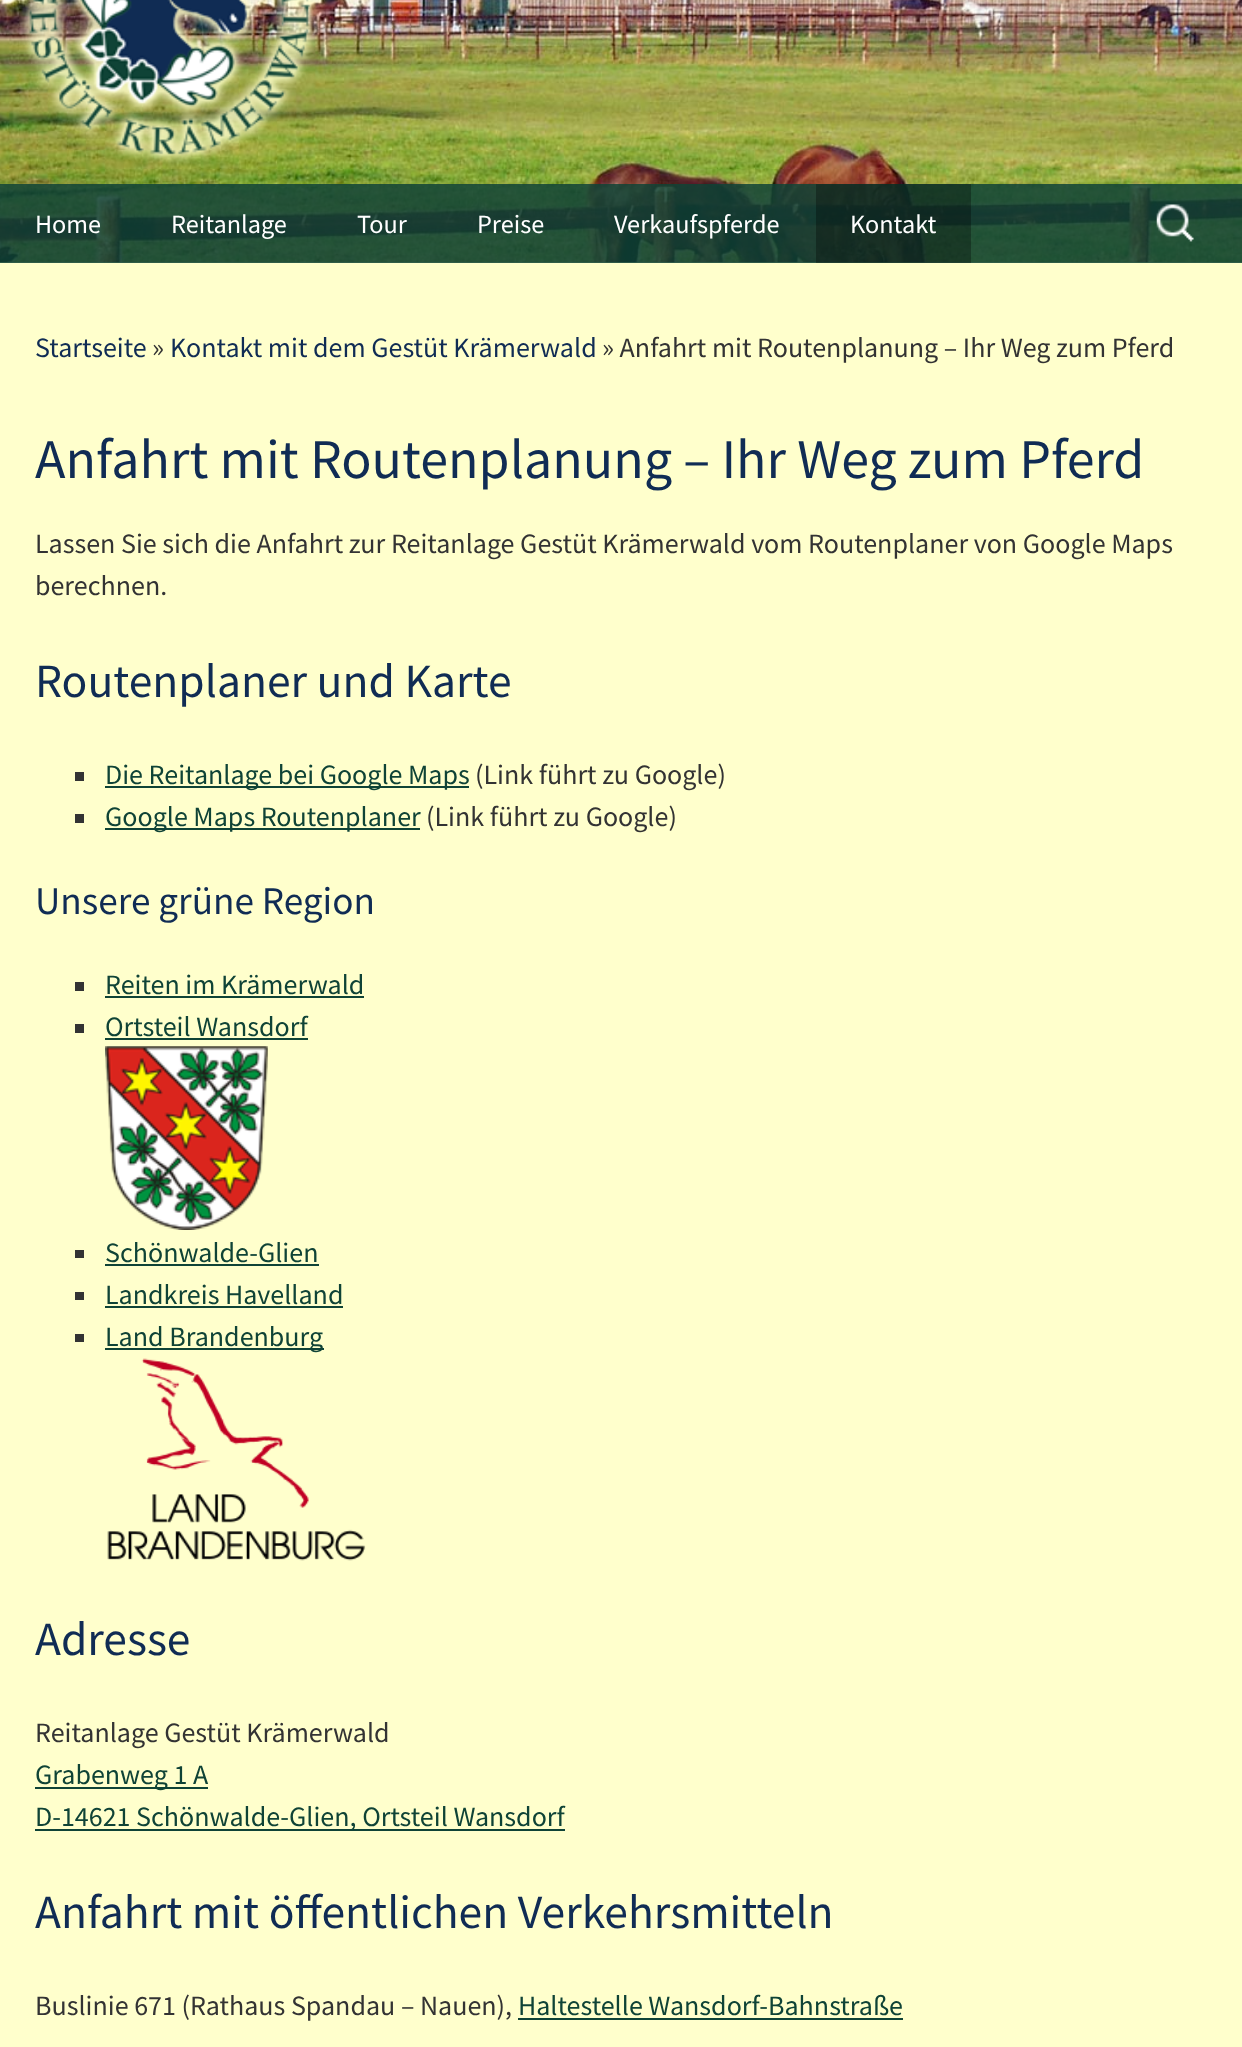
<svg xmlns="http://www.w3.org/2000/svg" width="1242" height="2047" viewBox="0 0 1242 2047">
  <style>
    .t1 { font: 26.25px Source Sans Pro; fill: #fff; }
    .t2 { font: 28px Source Sans Pro; fill: #102c54; }
    .t3 { font: 28px Source Sans Pro; fill: #333; }
    .t4 { font: 56px Source Sans Pro; fill: #102c54; }
    .t5 { font: 47.6px Source Sans Pro; fill: #102c54; }
    .t6 { font: 28px Source Sans Pro; fill: #0f4336; }
    .t7 { font: 39.25px Source Sans Pro; fill: #102c54; }
  </style>
  <rect width="100%" height="100%" fill="#ffc"/>
  <image x="0" y="0" width="1242" height="263" href="images/1.png"/>
  <image x="19" y="0" width="301" height="165" href="images/2.png"/>
  <rect x="0" y="184" width="1242" height="79" fill="#0f4336d9"/>
  <text x="35" y="233" class="t1">Home</text>
  <text x="171" y="233" class="t1">Reitanlage</text>
  <text x="357" y="233" class="t1">Tour</text>
  <text x="477" y="233" class="t1">Preise</text>
  <text x="614" y="233" class="t1">Verkaufspferde</text>
  <rect x="816" y="184" width="155" height="79" fill="#0000004d"/>
  <text x="850" y="233" class="t1">Kontakt</text>
  <image x="1156" y="204" width="38" height="38" href="images/3.png"/>
  <text x="35" y="357" class="t2">Startseite</text>
  <text x="152" y="357" class="t3">»</text>
  <text x="170" y="357" class="t2">Kontakt mit dem Gestüt Krämerwald</text>
  <text x="602" y="357" class="t3">» Anfahrt mit Routenplanung – Ihr Weg zum Pferd</text>
  <text x="35" y="478" class="t4">Anfahrt mit Routenplanung – Ihr Weg zum Pferd</text>
  <text x="35" y="553" class="t3">Lassen Sie sich die Anfahrt zur Reitanlage Gestüt Krämerwald vom Routenplaner von Google Maps</text>
  <text x="35" y="595" class="t3">berechnen.</text>
  <text x="35" y="697" class="t5">Routenplaner und Karte</text>
  <rect x="75" y="772" width="9" height="9" fill="#333"/>
  <rect x="105" y="786" width="364" height="2" fill="#0f4336"/>
  <text x="105" y="784" class="t6">Die Reitanlage bei Google Maps</text>
  <text x="475" y="784" class="t3">(Link führt zu Google)</text>
  <rect x="75" y="814" width="9" height="9" fill="#333"/>
  <rect x="105" y="828" width="315" height="2" fill="#0f4336"/>
  <text x="105" y="826" class="t6">Google Maps Routenplaner</text>
  <text x="426" y="826" class="t3">(Link führt zu Google)</text>
  <text x="35" y="914" class="t7">Unsere grüne Region</text>
  <rect x="75" y="982" width="9" height="9" fill="#333"/>
  <text x="105" y="994" class="t6">Reiten im Krämerwald</text>
  <rect x="105" y="996" width="259" height="2" fill="#0f4336"/>
  <rect x="75" y="1024" width="9" height="9" fill="#333"/>
  <text x="105" y="1036" class="t6">Ortsteil Wansdorf</text>
  <rect x="105" y="1038" width="203" height="2" fill="#0f4336"/>
  <image x="105" y="1046" width="163" height="184" href="images/4.png"/>
  <rect x="75" y="1250" width="9" height="8" fill="#333"/>
  <text x="105" y="1262" class="t6">Schönwalde-Glien</text>
  <rect x="105" y="1264" width="214" height="2" fill="#0f4336"/>
  <rect x="75" y="1292" width="9" height="8" fill="#333"/>
  <text x="105" y="1304" class="t6">Landkreis Havelland</text>
  <rect x="105" y="1306" width="238" height="2" fill="#0f4336"/>
  <rect x="75" y="1334" width="9" height="8" fill="#333"/>
  <rect x="105" y="1348" width="219" height="2" fill="#0f4336"/>
  <text x="105" y="1346" class="t6">Land Brandenburg</text>
  <image x="107" y="1358" width="259" height="203" href="images/5.png"/>
  <text x="35" y="1655" class="t5">Adresse</text>
  <text x="35" y="1742" class="t3">Reitanlage Gestüt Krämerwald</text>
  <rect x="35" y="1787" width="173" height="2" fill="#0f4336"/>
  <text x="35" y="1784" class="t6">Grabenweg 1 A</text>
  <rect x="35" y="1829" width="530" height="2" fill="#0f4336"/>
  <text x="35" y="1826" class="t6">D-14621 Schönwalde-Glien, Ortsteil Wansdorf</text>
  <text x="35" y="1928" class="t5">Anfahrt mit öffentlichen Verkehrsmitteln</text>
  <text x="35" y="2015" class="t3">Buslinie 671 (Rathaus Spandau – Nauen),</text>
  <text x="518" y="2015" class="t6">Haltestelle Wansdorf-Bahnstraße</text>
  <rect x="518" y="2018" width="385" height="2" fill="#0f4336"/>
</svg>
